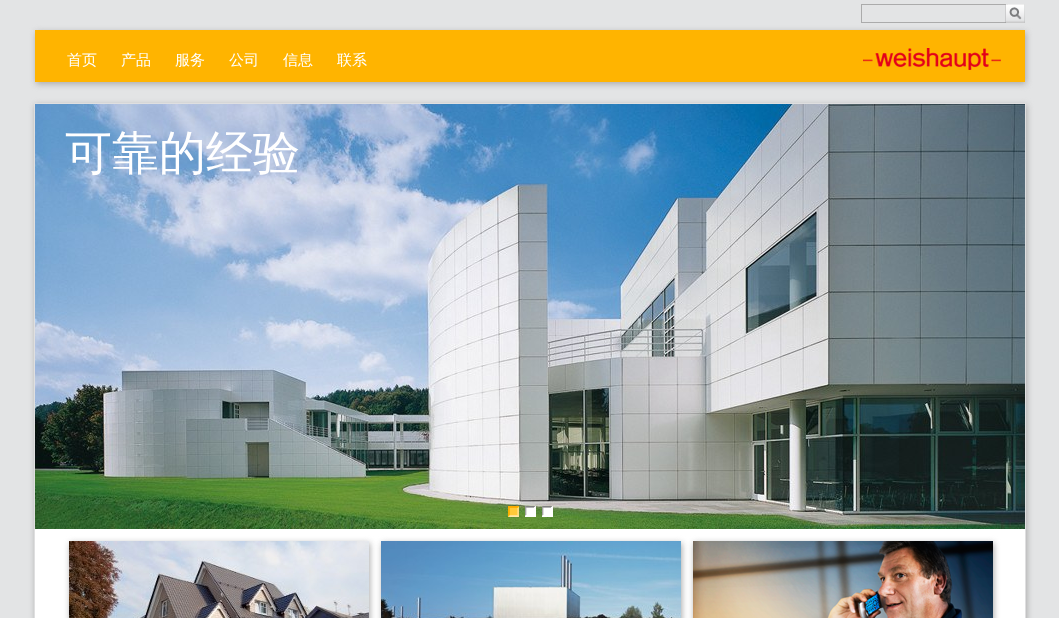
<svg xmlns="http://www.w3.org/2000/svg" width="1059" height="618" viewBox="0 0 1059 618">
  <style>
    .t1 { font: 500 15px WenQuanYi Zen Hei; fill: #fff; }
    .t2 { font: 500 47px WenQuanYi Zen Hei; fill: #fff; }
  </style>
  <rect width="100%" height="100%" fill="#e3e4e5"/>
  <rect x="36" y="32" width="990" height="52" fill="#aaa" filter="blur(3px)"/>
  <rect x="861.5" y="4.5" width="146" height="18" fill="none" stroke="#ababab"/>
  <image x="1005" y="4" width="20" height="19" href="images/1.png"/>
  <rect x="35" y="30" width="990" height="52" fill="#ffb400"/>
  <text x="67" y="65" class="t1">首页</text>
  <text x="121" y="65" class="t1">产品</text>
  <text x="175" y="65" class="t1">服务</text>
  <text x="229" y="65" class="t1">公司</text>
  <text x="283" y="65" class="t1">信息</text>
  <text x="337" y="65" class="t1">联系</text>
  <image x="863" y="48" width="138" height="22" href="images/2.png"/>
  <rect x="35" y="105" width="992" height="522" fill="#aaa" filter="blur(3px)"/>
  <rect x="34.5" y="103.5" width="991" height="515" fill="none" stroke="#dfdfe0"/>
  <rect x="35" y="529" width="990" height="89" fill="#fff"/>
  <image x="35" y="104" width="990" height="425" href="images/3.png"/>
  <text x="65" y="169" class="t2">可靠的经验</text>
  <image x="508" y="506" width="11" height="11" href="images/4.png"/>
  <image x="525" y="506" width="11" height="11" href="images/5.png"/>
  <image x="542" y="506" width="11" height="11" href="images/5.png"/>
  <rect x="70" y="543" width="300" height="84" fill="#aaa" filter="blur(3px)"/>
  <image x="69" y="541" width="300" height="77" href="images/6.png"/>
  <rect x="382" y="543" width="300" height="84" fill="#aaa" filter="blur(3px)"/>
  <image x="381" y="541" width="300" height="77" href="images/7.png"/>
  <rect x="694" y="543" width="300" height="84" fill="#aaa" filter="blur(3px)"/>
  <image x="693" y="541" width="300" height="77" href="images/8.png"/>
</svg>
